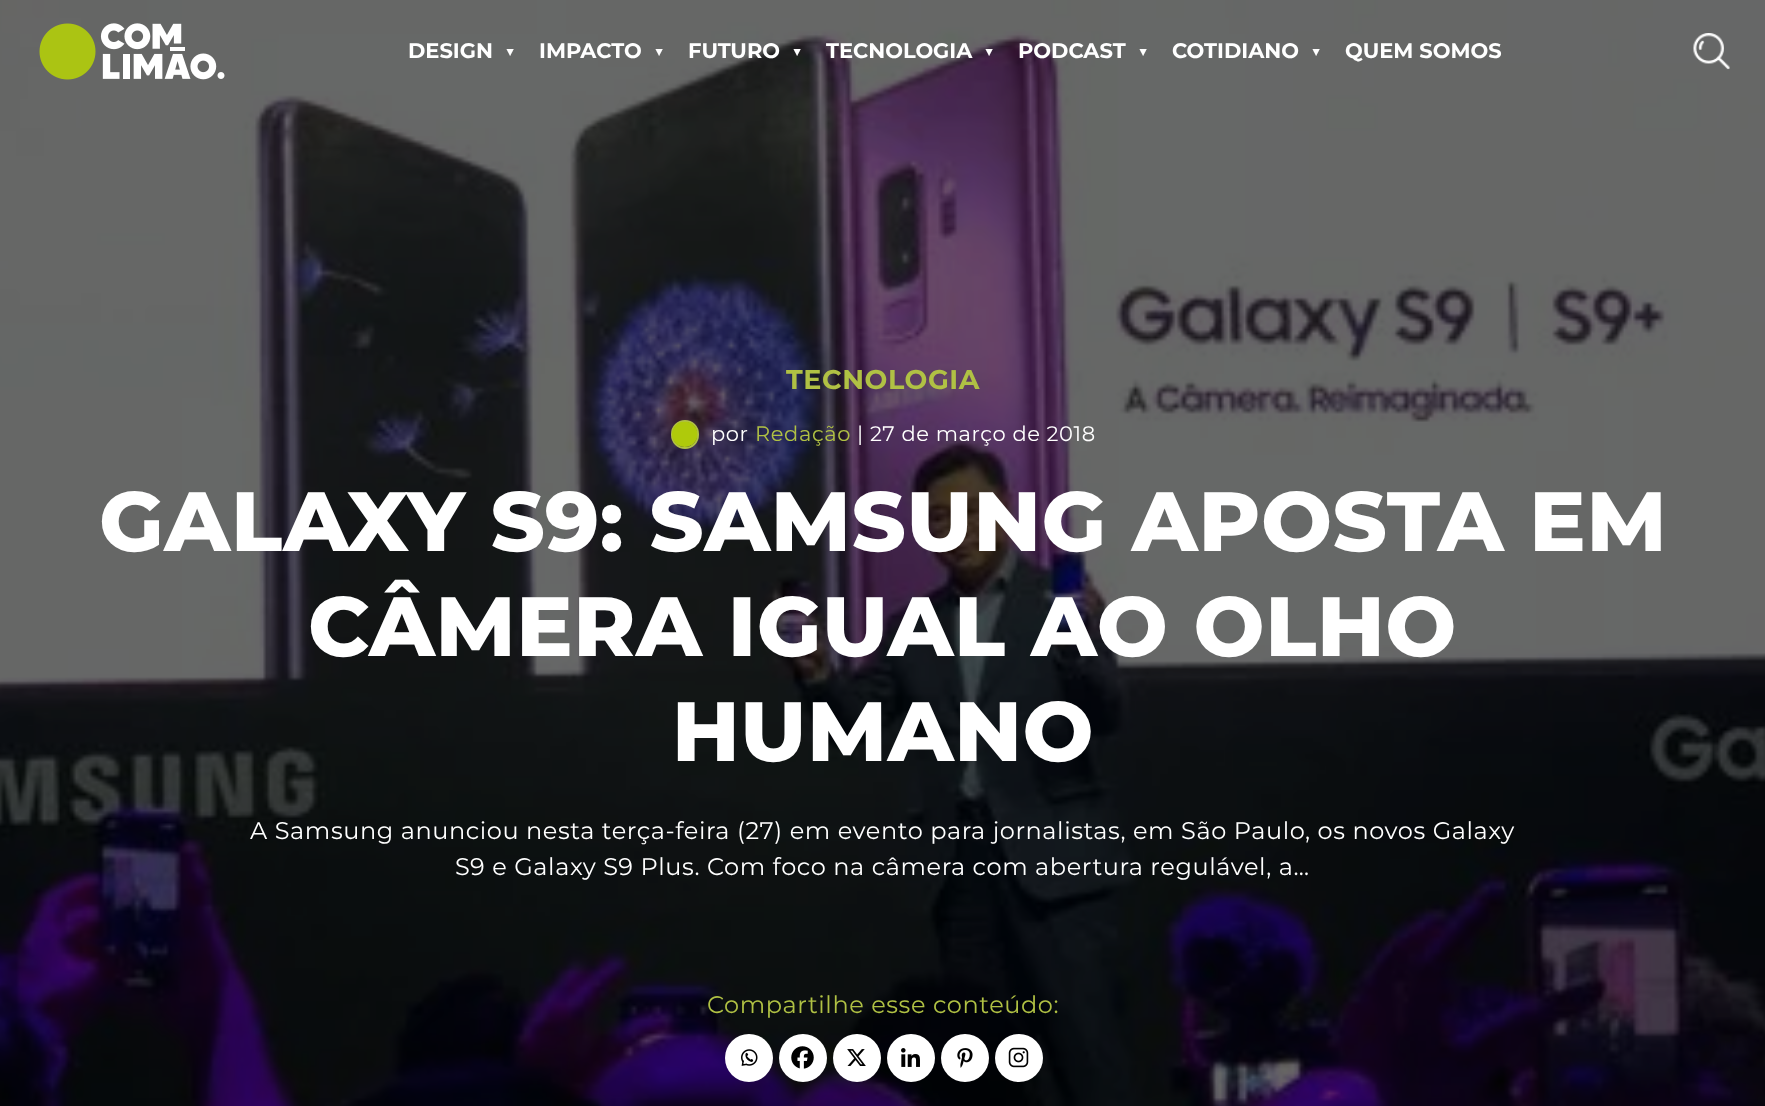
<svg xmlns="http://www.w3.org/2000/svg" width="1765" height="1106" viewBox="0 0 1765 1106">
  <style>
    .t1 { font: bold 21px Montserrat; fill: #fff; }
    .t2 { font: bold 17px Montserrat; fill: #fff; }
    .t3 { font: bold 27px Montserrat; letter-spacing: 0.6px; fill: #b0c144; }
    .t4 { font: 21px Montserrat; letter-spacing: 0.6px; fill: #fff; }
    .t5 { font: 21px Montserrat; letter-spacing: 0.6px; fill: #b0c144; }
    .t6 { font: 800 84px Montserrat; letter-spacing: 0.6px; fill: #fff; }
    .t7 { font: 24px Montserrat; letter-spacing: 0.6px; fill: #fff; }
    .t8 { font: 24px Montserrat; letter-spacing: 0.6px; fill: #b0c144; }
  </style>
  <rect width="100%" height="100%" fill="#fff"/>
  <image x="0" y="0" width="1765" height="1106" href="images/3.png"/>
  <image x="39" y="23" width="186" height="57" href="images/1.png"/>
  <text x="408" y="58" class="t1">DESIGN</text>
  <text x="505" y="57" class="t2">▼</text>
  <text x="539" y="58" class="t1">IMPACTO</text>
  <text x="654" y="57" class="t2">▼</text>
  <text x="688" y="58" class="t1">FUTURO</text>
  <text x="792" y="57" class="t2">▼</text>
  <text x="826" y="58" class="t1">TECNOLOGIA</text>
  <text x="984" y="57" class="t2">▼</text>
  <text x="1018" y="58" class="t1">PODCAST</text>
  <text x="1138" y="57" class="t2">▼</text>
  <text x="1172" y="58" class="t1">COTIDIANO</text>
  <text x="1311" y="57" class="t2">▼</text>
  <text x="1345" y="58" class="t1">QUEM SOMOS</text>
  <image x="1693" y="33" width="37" height="37" href="images/2.png"/>
  <text x="786" y="389" class="t3">TECNOLOGIA</text>
  <rect x="672" y="421" width="26" height="27" rx="13" fill="none" stroke="#b0c144" stroke-width="2"/>
  <image x="672" y="421" width="26" height="26" href="images/4.png"/>
  <text x="711" y="441" class="t4">por</text>
  <text x="755" y="441" class="t5">Redação</text>
  <text x="857" y="441" class="t4">| 27 de março de 2018</text>
  <text x="99" y="551" class="t6">GALAXY S9: SAMSUNG APOSTA EM</text>
  <text x="308" y="656" class="t6">CÂMERA IGUAL AO OLHO</text>
  <text x="672" y="761" class="t6">HUMANO</text>
  <text x="250" y="839" class="t7">A Samsung anunciou nesta terça-feira (27) em evento para jornalistas, em São Paulo, os novos Galaxy</text>
  <text x="455" y="875" class="t7">S9 e Galaxy S9 Plus. Com foco na câmera com abertura regulável, a…</text>
  <text x="707" y="1013" class="t8">Compartilhe esse conteúdo:</text>
  <circle cx="749" cy="1058" r="24" fill="#fff"/>
  <image x="741" y="1049" width="17" height="17" href="images/5.png"/>
  <circle cx="803" cy="1058" r="24" fill="#fff"/>
  <image x="791" y="1046" width="23" height="23" href="images/6.png"/>
  <circle cx="857" cy="1058" r="24" fill="#fff"/>
  <image x="847" y="1049" width="19" height="17" href="images/7.png"/>
  <circle cx="911" cy="1058" r="24" fill="#fff"/>
  <image x="901" y="1048" width="19" height="19" href="images/8.png"/>
  <circle cx="965" cy="1058" r="24" fill="#fff"/>
  <image x="957" y="1048" width="16" height="20" href="images/9.png"/>
  <circle cx="1019" cy="1058" r="24" fill="#fff"/>
  <image x="1008" y="1047" width="21" height="21" href="images/10.png"/>
</svg>
